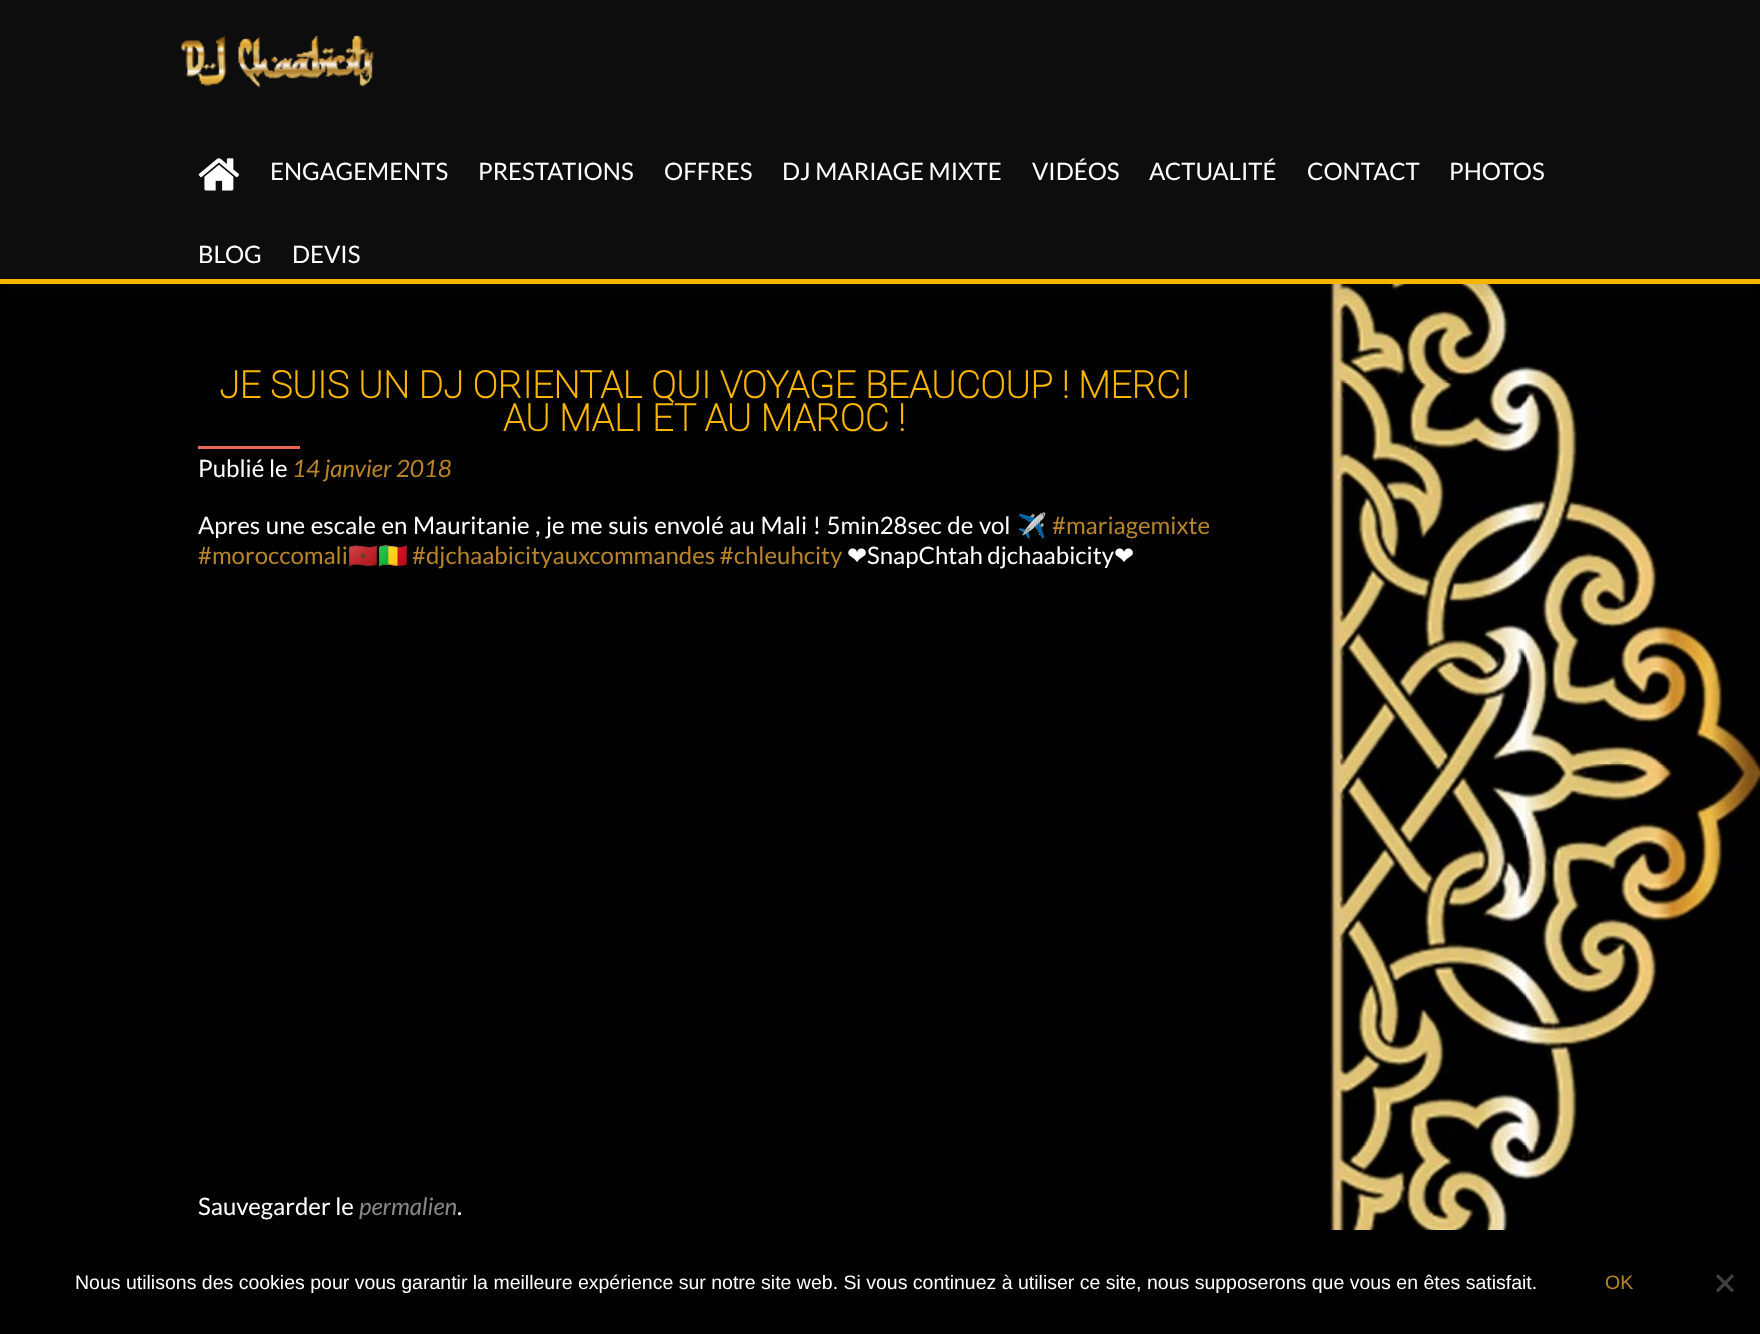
<svg xmlns="http://www.w3.org/2000/svg" width="1760" height="1334" viewBox="0 0 1760 1334">
  <style>
    .t1 { font: 24px Lato; fill: #fff; }
    .t2 { font: bold 37.5px Roboto; fill: #f8b500; }
    .t3 { font: italic 24px Lato; fill: #b8852a; }
    .t4 { font: 24px Noto Color Emoji; fill: #fff; }
    .t5 { font: 24px Lato; fill: #b8852a; }
    .t6 { font: 24px DejaVu Sans; fill: #fff; }
    .t7 { font: italic 24px Lato; fill: #888; }
    .t8 { font: 19.5px Liberation Sans; fill: #fff; }
    .t9 { font: 19.5px Liberation Sans; fill: #b8852a; }
  </style>
  <defs>
    <clipPath id="clip1"><rect x="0" y="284" width="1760" height="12"/></clipPath>
  </defs>
  <rect width="100%" height="100%" fill="#fff"/>
  <rect x="0" y="284" width="1331" height="946" fill="#000"/>
  <image x="1330" y="284" width="430" height="946" href="images/3.png"/>
  <g clip-path="url(#clip1)">
    <rect x="0" y="8" width="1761" height="283" fill="#32323214" filter="blur(8px)"/>
  </g>
  <rect x="0" y="0" width="1760" height="279" fill="#000000f2"/>
  <rect x="0" y="279" width="1760" height="5" fill="#f8b500"/>
  <image x="181" y="34" width="194" height="54" href="images/1.png"/>
  <image x="198" y="158" width="42" height="33" href="images/2.png"/>
  <text x="270" y="180" class="t1">ENGAGEMENTS</text>
  <text x="478" y="180" class="t1">PRESTATIONS</text>
  <text x="664" y="180" class="t1">OFFRES</text>
  <text x="782" y="180" class="t1">DJ MARIAGE MIXTE</text>
  <text x="1032" y="180" class="t1">VIDÉOS</text>
  <text x="1149" y="180" class="t1">ACTUALITÉ</text>
  <text x="1307" y="180" class="t1">CONTACT</text>
  <text x="1449" y="180" class="t1">PHOTOS</text>
  <text x="198" y="263" class="t1">BLOG</text>
  <text x="292" y="263" class="t1">DEVIS</text>
  <text x="219" y="398" class="t2">JE SUIS UN DJ ORIENTAL QUI VOYAGE BEAUCOUP ! MERCI</text>
  <text x="503" y="431" class="t2">AU MALI ET AU MAROC !</text>
  <rect x="198" y="446" width="102" height="3" fill="#e96656"/>
  <text x="198" y="477" class="t1">Publié le</text>
  <text x="292" y="477" class="t3">14 janvier 2018</text>
  <text x="198" y="534" word-spacing="1" class="t1">Apres une escale en Mauritanie , je me suis envolé au Mali ! 5min28sec de vol</text>
  <text x="1017" y="534" class="t4">✈️</text>
  <text x="1052" y="534" class="t5">#mariagemixte</text>
  <text x="198" y="564" class="t5">#moroccomali</text>
  <text x="348" y="564" class="t4">🇲🇦🇲🇱</text>
  <text x="412" y="564" class="t5">#djchaabicityauxcommandes #chleuhcity</text>
  <text x="847" y="564" class="t6">❤</text>
  <text x="867" y="564" class="t1">SnapChtah djchaabicity</text>
  <text x="1114" y="564" class="t6">❤</text>
  <text x="198" y="1215" class="t1">Sauvegarder le</text>
  <text x="359" y="1215" class="t7">permalien</text>
  <text x="457" y="1215" class="t1">.</text>
  <rect x="0" y="1230" width="1760" height="104" fill="#000"/>
  <text x="75" y="1289" class="t8">Nous utilisons des cookies pour vous garantir la meilleure expérience sur notre site web. Si vous continuez à utiliser ce site, nous supposerons que vous en êtes satisfait.</text>
  <text x="1605" y="1289" class="t9">OK</text>
  <path d="M1732 1274L1734 1276.5L1718 1292.5L1716 1290Z" fill="#404040"/>
  <path d="M1716 1276.5L1718 1274L1734 1290L1732 1292.5Z" fill="#404040"/>
</svg>
